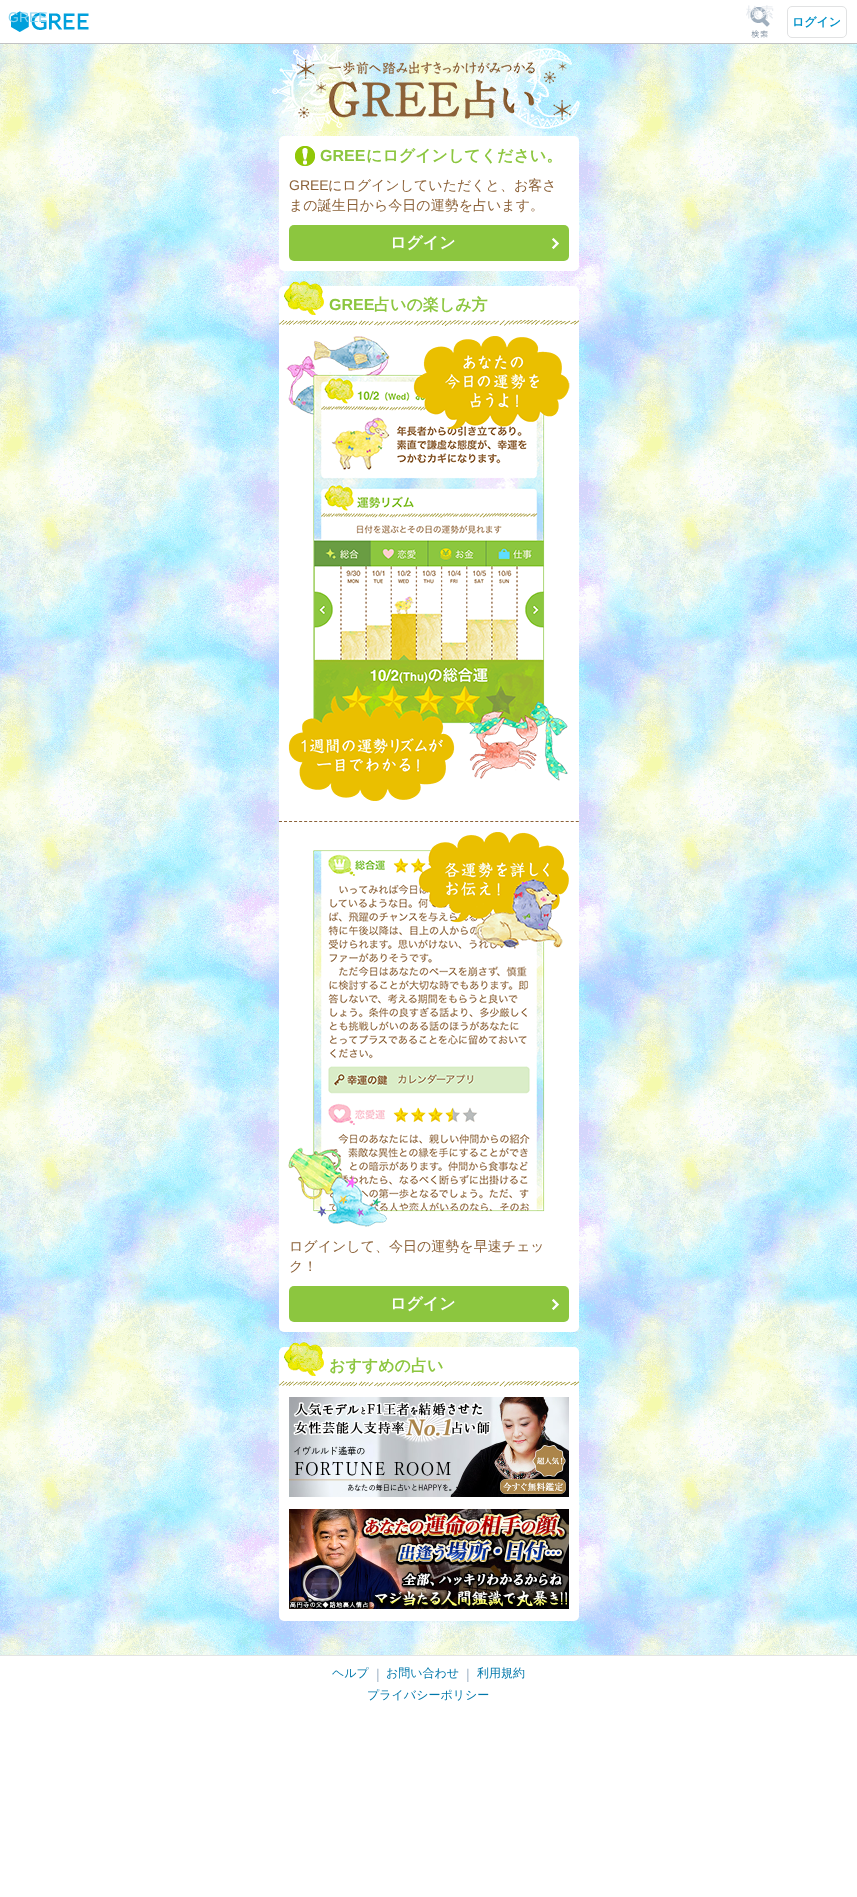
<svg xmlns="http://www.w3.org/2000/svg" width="857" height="1897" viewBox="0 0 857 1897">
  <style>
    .t1 { font: 14px Liberation Sans; fill: #8ad3ef; }
    .t2 { font: 500 14px WenQuanYi Zen Hei; fill: #e4e8ed; }
    .t3 { font: bold 12px WenQuanYi Zen Hei; fill: #0091c8; }
    .t4 { font: bold 16px Liberation Sans; fill: #8cc63f; }
    .t5 { font: bold 16px WenQuanYi Zen Hei; fill: #8cc63f; }
    .t6 { font: 14px Liberation Sans; fill: #8c6239; }
    .t7 { font: 500 14px WenQuanYi Zen Hei; fill: #8c6239; }
    .t8 { font: bold 16px WenQuanYi Zen Hei; fill: #fff; }
    .t9 { font: 500 12px WenQuanYi Zen Hei; fill: #07a; }
    .t10 { font: 14px Liberation Sans; fill: #abc; }
  </style>
  <rect width="100%" height="100%" fill="#fff"/>
  <rect x="0" y="43" width="857" height="1" fill="#c1c2c3"/>
  <image x="11" y="11" width="78" height="21" href="images/1.png"/>
  <text x="8" y="22" class="t1">GREE</text>
  <image x="750" y="7" width="20" height="31" href="images/2.png"/>
  <text x="746" y="17" class="t2">検索</text>
  <rect x="787.5" y="6.5" width="59" height="31" rx="4.5" fill="none" stroke="#e1e2e3"/>
  <text x="792" y="26" class="t3">ログイン</text>
  <image x="0" y="44" width="857" height="1611" href="images/3.png"/>
  <image x="272" y="45" width="308" height="86" href="images/4.png"/>
  <rect x="279" y="136" width="300" height="135" rx="5" fill="#fff"/>
  <image x="295" y="146" width="20" height="20" href="images/5.png"/>
  <text x="320" y="161" class="t4">GREE</text>
  <text x="366" y="161" class="t5">にログインしてください。</text>
  <text x="289" y="190" class="t6">GREE</text>
  <text x="328" y="190" class="t7">にログインしていただくと、お客さ</text>
  <text x="289" y="210" class="t7">まの誕生日から今日の運勢を占います。</text>
  <rect x="289" y="225" width="280" height="36" rx="5" fill="#8cc63f"/>
  <image x="552" y="238" width="7" height="11" href="images/6.png"/>
  <text x="390" y="248" class="t8">ログイン</text>
  <rect x="279" y="286" width="300" height="1046" rx="5" fill="#fff"/>
  <image x="279" y="320" width="300" height="6" href="images/7.png"/>
  <image x="284" y="281" width="40" height="34" href="images/8.png"/>
  <text x="329" y="310" class="t4">GREE</text>
  <text x="374" y="310" class="t5">占いの楽しみ方</text>
  <path d="M279 821.5H579" fill="none" stroke="#8c6239" stroke-dasharray="3 2.03"/>
  <image x="286" y="336" width="284" height="465" href="images/9.png"/>
  <image x="288" y="832" width="281" height="395" href="images/10.png"/>
  <text x="289" y="1251" class="t7">ログインして、今日の運勢を早速チェッ</text>
  <text x="289" y="1271" class="t7">ク！</text>
  <rect x="289" y="1286" width="280" height="36" rx="5" fill="#8cc63f"/>
  <image x="552" y="1299" width="7" height="11" href="images/6.png"/>
  <text x="390" y="1309" class="t8">ログイン</text>
  <rect x="279" y="1347" width="300" height="274" rx="5" fill="#fff"/>
  <image x="279" y="1381" width="300" height="6" href="images/7.png"/>
  <image x="284" y="1342" width="40" height="34" href="images/11.png"/>
  <text x="329" y="1371" class="t5">おすすめの占い</text>
  <image x="289" y="1397" width="280" height="100" href="images/12.png"/>
  <image x="289" y="1509" width="280" height="100" href="images/13.png"/>
  <rect x="0" y="1655" width="857" height="1" fill="#e4e5e6"/>
  <text x="332" y="1677" class="t9">ヘルプ</text>
  <text x="376" y="1679" class="t10">|</text>
  <text x="386" y="1677" class="t9">お問い合わせ</text>
  <text x="466" y="1679" class="t10">|</text>
  <text x="477" y="1677" class="t9">利用規約</text>
  <text x="367" y="1699" class="t9">プライバシーポリシー</text>
</svg>
